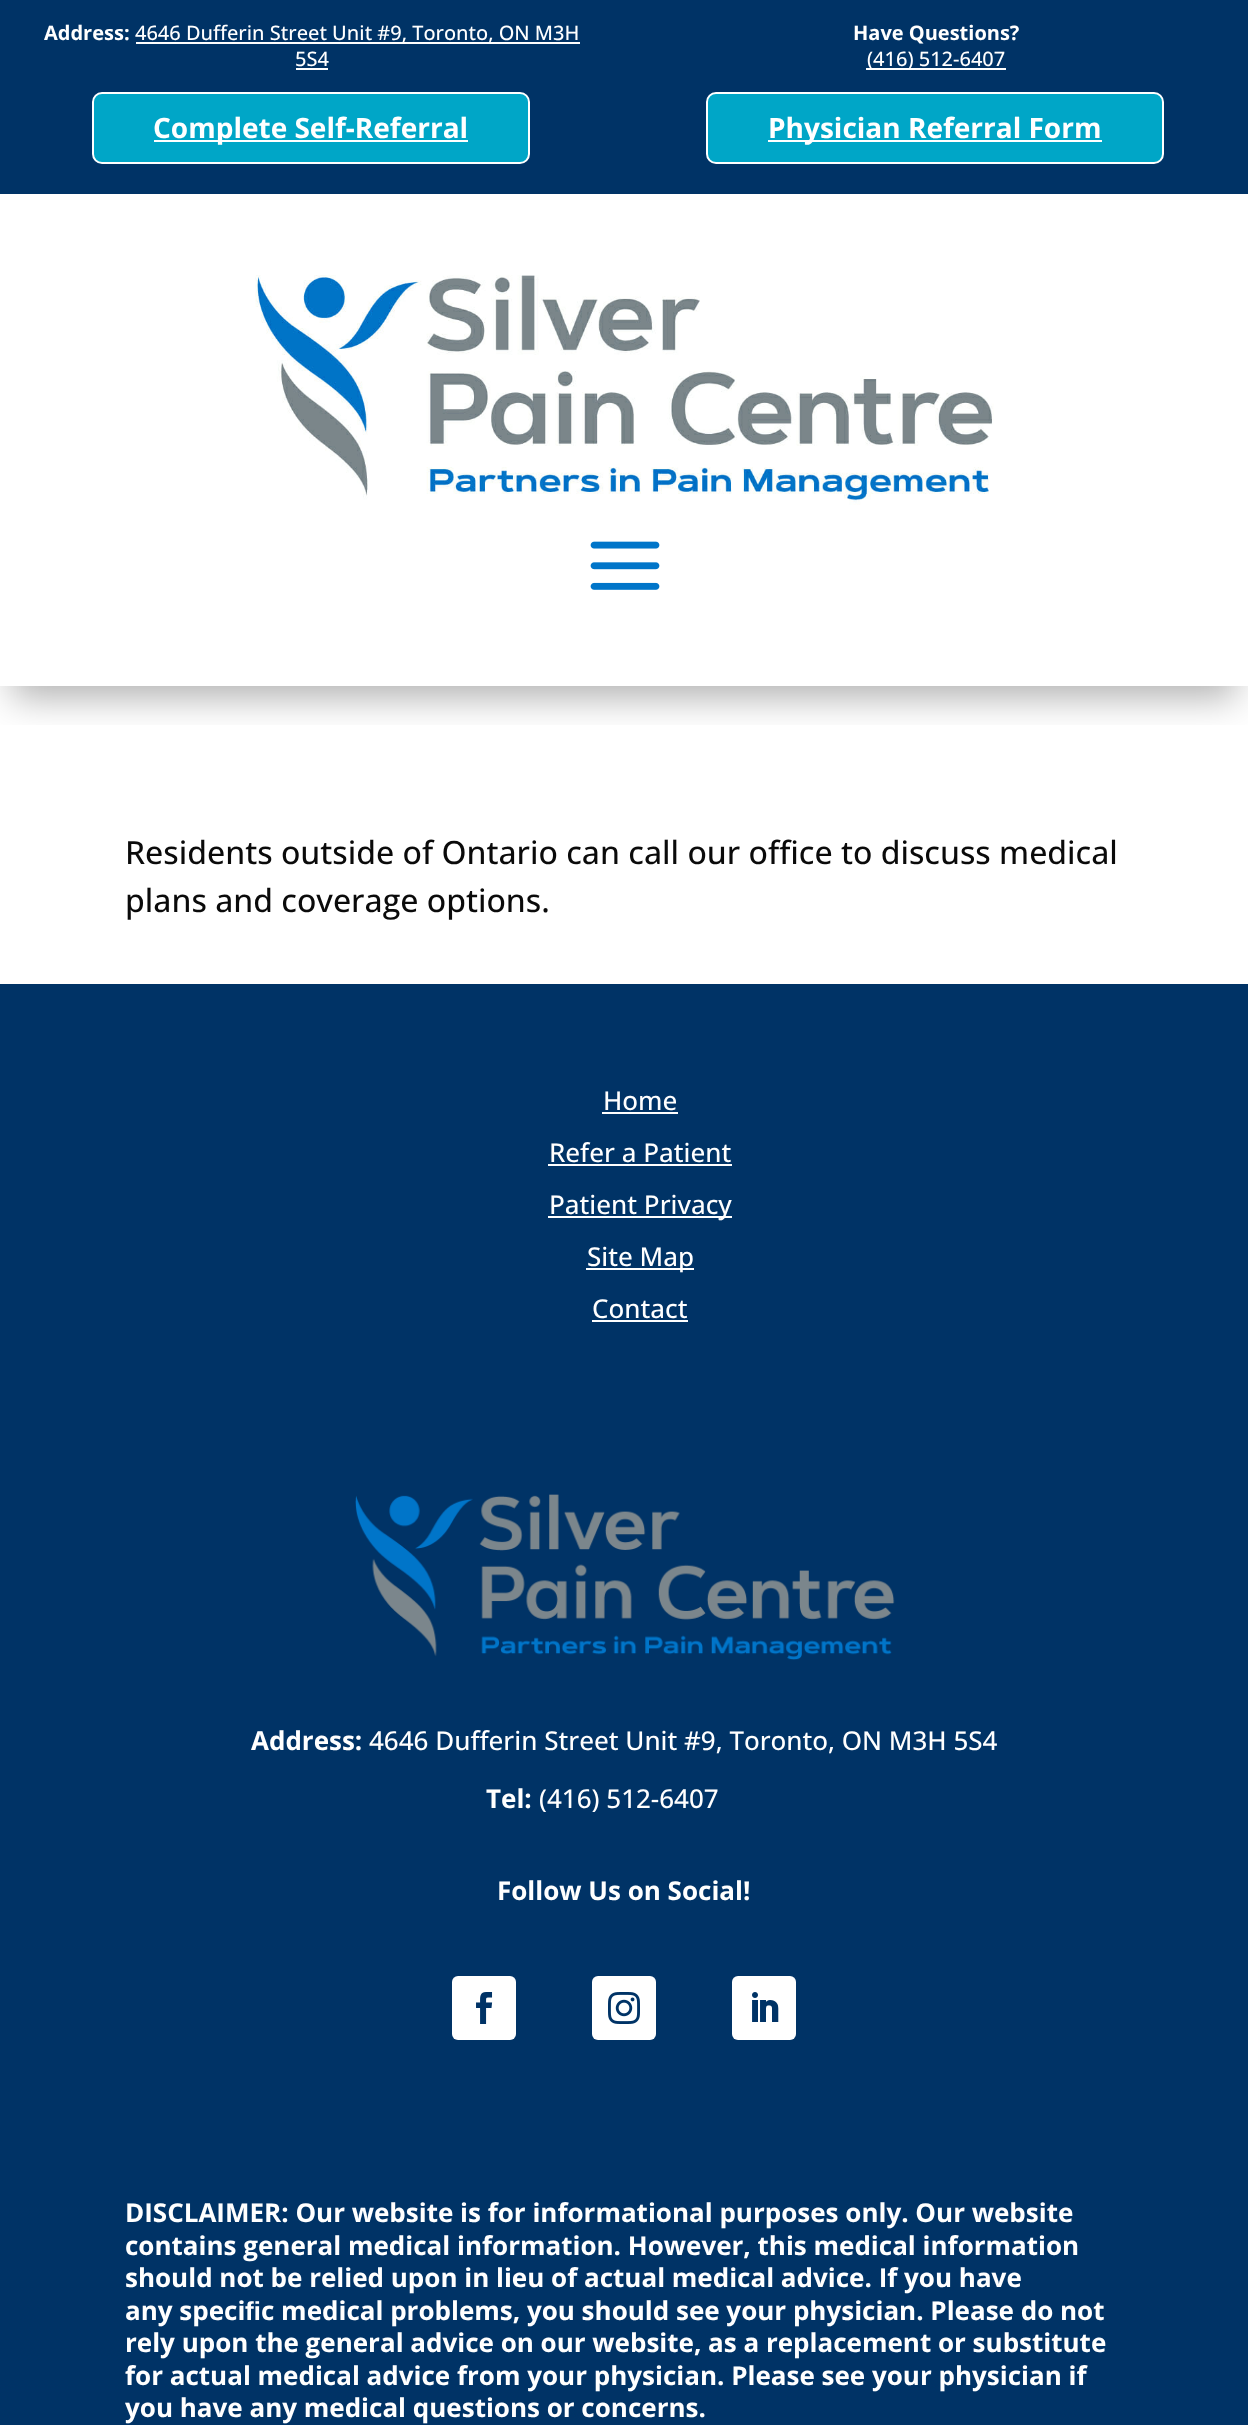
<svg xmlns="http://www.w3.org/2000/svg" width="1248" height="2425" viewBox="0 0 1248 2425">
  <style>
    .t1 { font: bold 20px Open Sans; fill: #fff; }
    .t2 { font: 500 20px Open Sans; fill: #fff; }
    .t3 { font: bold 28px Open Sans; fill: #fff; }
    .t4 { font: 500 32px Open Sans; fill: #0a0a0a; }
    .t5 { font: 500 26px Open Sans; fill: #fff; }
    .t6 { font: bold 26px Open Sans; fill: #fff; }
    .t7 { font: bold 26px Liberation Sans; fill: #fff; }
  </style>
  <defs>
    <clipPath id="clip1"><rect x="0" y="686" width="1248" height="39"/></clipPath>
  </defs>
  <rect width="100%" height="100%" fill="#fff"/>
  <rect x="0" y="0" width="1248" height="194" fill="#036"/>
  <text x="44" y="40" class="t1">Address:</text>
  <rect x="136" y="42" width="444" height="2" fill="#fff"/>
  <text x="135" y="40" class="t2">4646 Dufferin Street Unit #9, Toronto, ON M3H</text>
  <text x="295" y="66" class="t2">5S4</text>
  <rect x="296" y="68" width="32" height="2" fill="#fff"/>
  <text x="853" y="40" class="t1">Have Questions?</text>
  <rect x="866" y="68" width="140" height="2" fill="#fff"/>
  <text x="867" y="66" class="t2">(416) 512-6407</text>
  <rect x="93" y="93" width="436" height="70" rx="9" fill="#00a6c7" stroke="#fff" stroke-width="2"/>
  <rect x="154" y="140" width="314" height="2" fill="#fff"/>
  <text x="153" y="138" class="t3">Complete Self-Referral</text>
  <rect x="707" y="93" width="456" height="70" rx="9" fill="#00a6c7" stroke="#fff" stroke-width="2"/>
  <rect x="768" y="140" width="334" height="2" fill="#fff"/>
  <text x="768" y="138" class="t3">Physician Referral Form</text>
  <g clip-path="url(#clip1)">
    <rect x="12" y="230" width="1224" height="468" fill="#0000004d" filter="blur(18px)"/>
  </g>
  <image x="255" y="275" width="739" height="230" href="images/1.png"/>
  <image x="590" y="541" width="70" height="49" href="images/2.png"/>
  <text x="125" y="864" class="t4">Residents outside of Ontario can call our office to discuss medical</text>
  <text x="125" y="912" class="t4">plans and coverage options.</text>
  <rect x="0" y="984" width="1248" height="1441" fill="#036"/>
  <text x="603" y="1110" class="t5">Home</text>
  <rect x="602" y="1112" width="76" height="2" fill="#fff"/>
  <text x="549" y="1162" class="t5">Refer a Patient</text>
  <rect x="548" y="1164" width="184" height="2" fill="#fff"/>
  <rect x="548" y="1216" width="184" height="2" fill="#fff"/>
  <text x="549" y="1214" class="t5">Patient Privacy</text>
  <rect x="586" y="1268" width="108" height="2" fill="#fff"/>
  <text x="587" y="1266" class="t5">Site Map</text>
  <text x="592" y="1318" class="t5">Contact</text>
  <rect x="592" y="1320" width="96" height="2" fill="#fff"/>
  <image x="355" y="1494" width="540" height="166" href="images/3.png"/>
  <text x="251" y="1750" class="t6">Address:</text>
  <text x="369" y="1750" class="t5">4646 Dufferin Street Unit #9, Toronto, ON M3H 5S4</text>
  <text x="486" y="1808" class="t6">Tel:</text>
  <text x="539" y="1808" class="t5">(416) 512-6407</text>
  <text x="497" y="1900" class="t6">Follow Us on Social!</text>
  <rect x="452" y="1976" width="64" height="64" rx="6" fill="#fff"/>
  <image x="476" y="1992" width="17" height="32" href="images/4.png"/>
  <rect x="592" y="1976" width="64" height="64" rx="6" fill="#fff"/>
  <image x="608" y="1992" width="32" height="32" href="images/5.png"/>
  <rect x="732" y="1976" width="64" height="64" rx="6" fill="#fff"/>
  <image x="752" y="1992" width="27" height="30" href="images/6.png"/>
  <text x="125" y="2222" class="t6">DISCLAIMER: Our website is for informational purposes only. Our website</text>
  <text x="125" y="2255" class="t6">contains general medical information. However, this medical information</text>
  <text x="125" y="2287" class="t6">should not be relied upon in lieu of actual medical advice. If you have</text>
  <text x="125" y="2320" class="t6">any speci</text>
  <text x="245" y="2320" class="t7">ﬁ</text>
  <text x="261" y="2320" class="t6">c medical problems, you should see your physician. Please do not</text>
  <text x="125" y="2352" class="t6">rely upon the general advice on our website, as a replacement or substitute</text>
  <text x="125" y="2385" class="t6">for actual medical advice from your physician. Please see your physician if</text>
  <text x="125" y="2417" class="t6">you have any medical questions or concerns.</text>
</svg>
